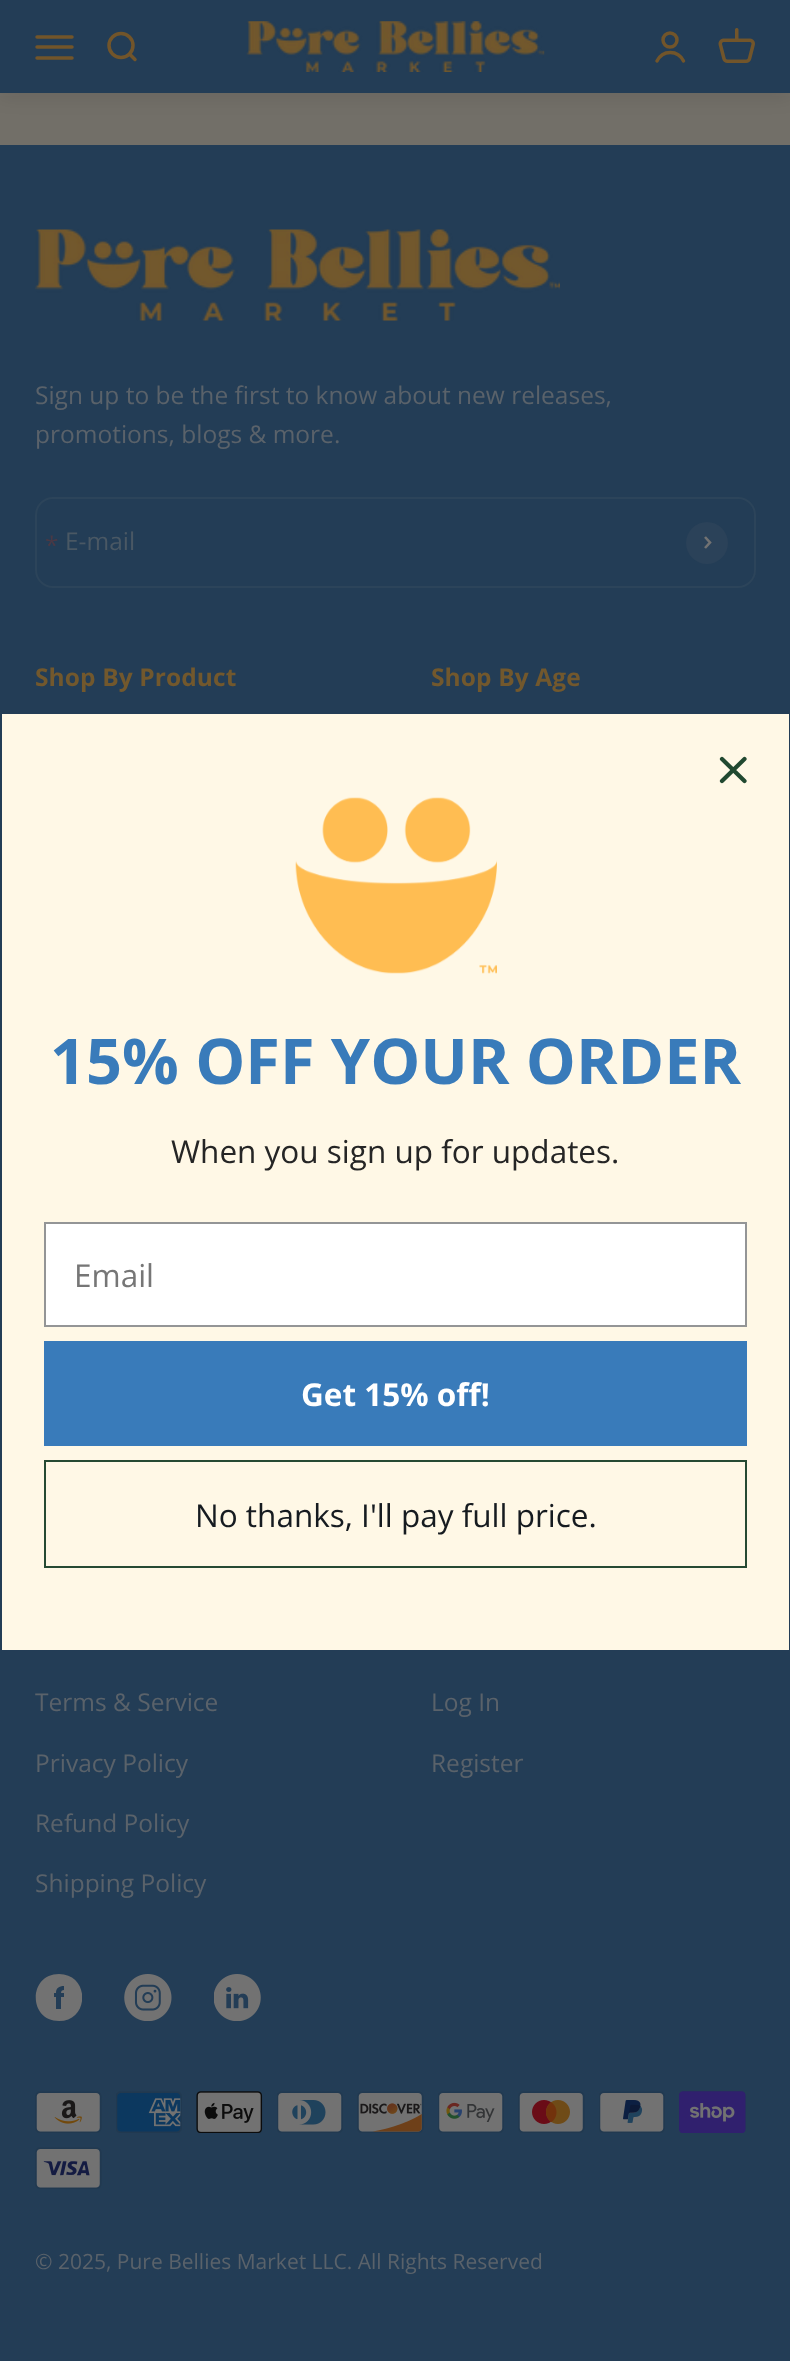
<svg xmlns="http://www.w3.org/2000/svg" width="790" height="2361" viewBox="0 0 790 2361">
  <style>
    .t1 { font: 24.5px Open Sans; fill: #5a626a; }
    .t2 { font: 24.5px Open Sans; fill: #4a3945; }
    .t3 { font: 24.5px Open Sans; fill: #4a5864; }
    .t4 { font: bold 24.5px Open Sans; letter-spacing: 0.1px; fill: #72582d; }
    .t5 { font: 21px Open Sans; fill: #5a626a; }
    .t6 { font: bold 63px Open Sans; fill: #397bba; }
    .t7 { font: 31.5px Open Sans; fill: #252525; }
    .t8 { font: 31.5px Open Sans; fill: #767676; }
    .t9 { font: bold 31.5px Open Sans; fill: #fff; }
    .t10 { font: 31.5px Open Sans; fill: #161b20; }
  </style>
  <defs>
    <clipPath id="clip1"><rect x="35" y="1974" width="47" height="47"/></clipPath>
  </defs>
  <rect width="100%" height="100%" fill="#726f68"/>
  <rect x="0" y="4" width="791" height="92" fill="#0c0c0c1a" filter="blur(9.5px)"/>
  <rect x="0" y="0" width="790" height="93" fill="#233d56"/>
  <path d="M37 37H72M37 47H72M37 58H72" fill="none" stroke="#72552a" stroke-width="3.5" stroke-linecap="round"/>
  <circle cx="121" cy="45.5" r="12" fill="none" stroke="#72552a" stroke-width="3.5"/>
  <path d="M129.5 54L135 59.5" fill="none" stroke="#72552a" stroke-width="3.5" stroke-linecap="round" stroke-linejoin="round"/>
  <image x="246" y="21" width="299" height="51" href="images/1.png"/>
  <circle cx="670" cy="40" r="7" fill="none" stroke="#72552a" stroke-width="3.5"/>
  <path d="M657 61C662.5 49.5 678 49.5 683.5 61" fill="none" stroke="#72552a" stroke-width="3.5" stroke-linecap="round"/>
  <image x="718" y="28" width="37" height="35" href="images/2.png"/>
  <rect x="0" y="145" width="790" height="2216" fill="#233d56"/>
  <image x="35" y="229" width="525" height="92" href="images/3.png"/>
  <text x="35" y="404" class="t1">Sign up to be the first to know about new releases,</text>
  <text x="35" y="443" class="t1">promotions, blogs &amp; more.</text>
  <rect x="36" y="498" width="719" height="89" rx="17" fill="none" stroke="#2c445a" stroke-width="2"/>
  <text x="45" y="554" class="t2">*</text>
  <text x="65" y="550" class="t3">E-mail</text>
  <circle cx="707" cy="543" r="21" fill="#2b4259"/>
  <path d="M705 548L710 542.5L705 537" fill="none" stroke="#727272" stroke-width="2.6"/>
  <text x="35" y="686" class="t4">Shop By Product</text>
  <text x="431" y="686" class="t4">Shop By Age</text>
  <text x="35" y="1711" class="t1">Terms &amp; Service</text>
  <text x="35" y="1772" class="t1">Privacy Policy</text>
  <text x="35" y="1832" class="t1">Refund Policy</text>
  <text x="35" y="1892" class="t1">Shipping Policy</text>
  <text x="431" y="1711" class="t1">Log In</text>
  <text x="431" y="1772" class="t1">Register</text>
  <g clip-path="url(#clip1)">
    <path d="M59 1974C28 1974 28 2021 59 2021C90 2021 90 1974 59 1974ZM64 1990C62 1990 61 1991 61 1993H64V1997H61V2009H56V1997H54V1993H56C56 1988 59 1986 64 1986Z" fill="#727272"/>
  </g>
  <image x="124" y="1974" width="48" height="47" href="images/4.png"/>
  <image x="214" y="1974" width="47" height="47" href="images/5.png"/>
  <image x="35" y="2091" width="67" height="42" href="images/6.png"/>
  <image x="116" y="2091" width="66" height="42" href="images/7.png"/>
  <image x="196" y="2091" width="67" height="42" href="images/8.png"/>
  <image x="277" y="2091" width="66" height="42" href="images/9.png"/>
  <image x="357" y="2091" width="67" height="42" href="images/10.png"/>
  <image x="438" y="2091" width="66" height="42" href="images/11.png"/>
  <image x="518" y="2091" width="67" height="42" href="images/12.png"/>
  <image x="599" y="2091" width="66" height="42" href="images/13.png"/>
  <image x="679" y="2091" width="67" height="42" href="images/14.png"/>
  <image x="35" y="2147" width="67" height="42" href="images/15.png"/>
  <text x="35" y="2269" class="t5">© 2025, Pure Bellies Market LLC. All Rights Reserved</text>
  <rect x="2" y="714" width="787" height="936" fill="#fff8e6"/>
  <path d="M722 759L744.5 781M722 781L744.5 759Z" fill="none" stroke="#214930" stroke-width="4.2" stroke-linecap="round" stroke-linejoin="round"/>
  <image x="295" y="797" width="202" height="177" href="images/16.png"/>
  <text x="50" y="1084" class="t6">15% OFF YOUR ORDER</text>
  <text x="171" y="1163" class="t7">When you sign up for updates.</text>
  <rect x="45" y="1223" width="701" height="103" fill="#fff" stroke="#949596" stroke-width="2"/>
  <text x="74" y="1287" class="t8">Email</text>
  <rect x="44" y="1341" width="703" height="105" fill="#397bba"/>
  <text x="301" y="1406" class="t9">Get 15% off!</text>
  <rect x="45" y="1461" width="701" height="106" fill="none" stroke="#264a33" stroke-width="2"/>
  <text x="195" y="1527" class="t10">No thanks, I'll pay full price.</text>
</svg>
